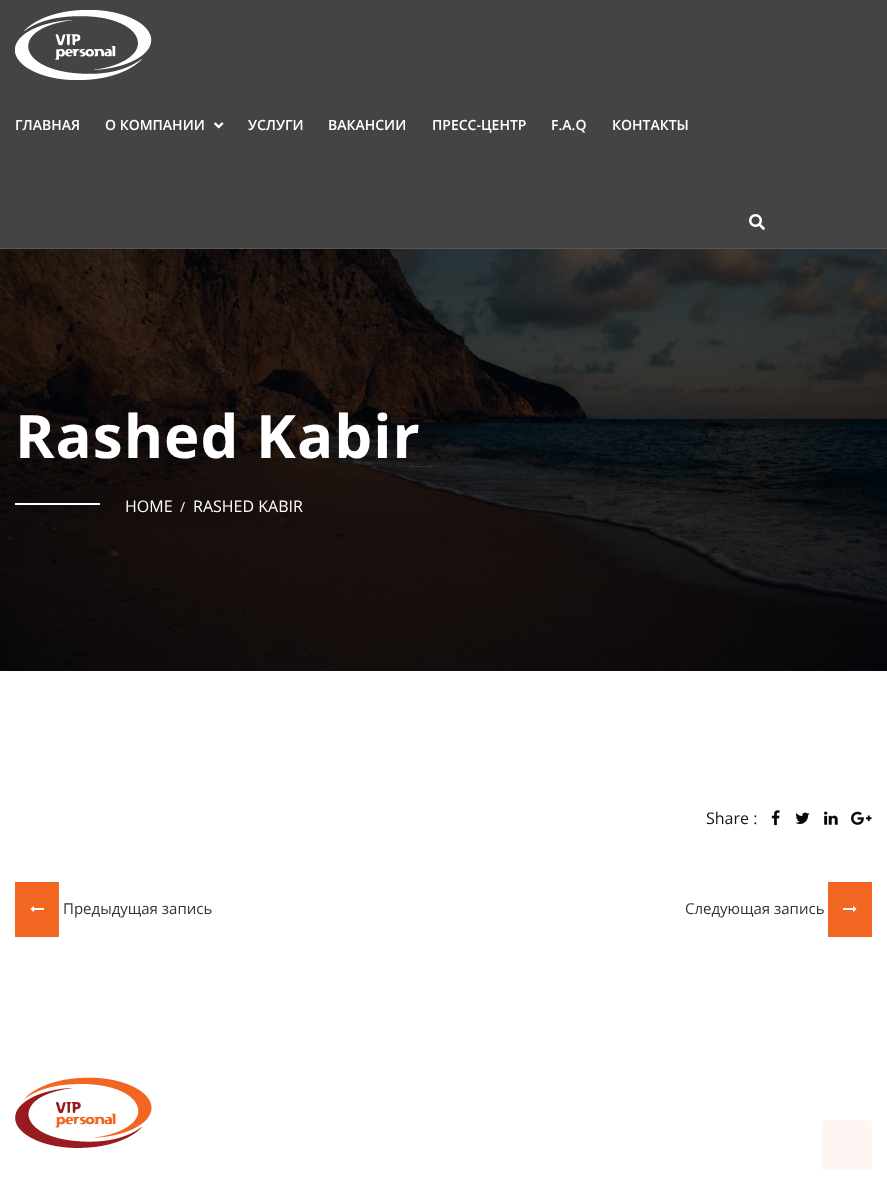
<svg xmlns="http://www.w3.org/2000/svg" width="887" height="1185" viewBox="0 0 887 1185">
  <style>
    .t1 { font: 600 14px Open Sans; fill: #fff; }
    .t2 { font: bold 60px Open Sans; letter-spacing: 1px; fill: #fff; }
    .t3 { font: 16px Open Sans; fill: #fff; }
    .t4 { font: 14px Open Sans; fill: #fff; }
    .t5 { font: 16px Open Sans; fill: #151515; }
    .t6 { font: 15px Open Sans; fill: #333; }
  </style>
  <rect width="100%" height="100%" fill="#fff"/>
  <rect x="0" y="0" width="887" height="248" fill="#444"/>
  <rect x="0" y="248" width="887" height="1" fill="#575757"/>
  <image x="15" y="10" width="137" height="70" href="images/1.png"/>
  <text x="15" y="130" class="t1">ГЛАВНАЯ</text>
  <text x="105" y="130" class="t1">О КОМПАНИИ</text>
  <image x="214" y="122" width="10" height="7" href="images/2.png"/>
  <text x="248" y="130" class="t1">УСЛУГИ</text>
  <text x="328" y="130" class="t1">ВАКАНСИИ</text>
  <text x="432" y="130" class="t1">ПРЕСС-ЦЕНТР</text>
  <text x="551" y="130" class="t1">F.A.Q</text>
  <text x="612" y="130" class="t1">КОНТАКТЫ</text>
  <image x="749" y="214" width="16" height="16" href="images/3.png"/>
  <image x="0" y="249" width="887" height="422" href="images/4.png"/>
  <text x="15" y="458" class="t2">Rashed Kabir</text>
  <rect x="15" y="503" width="85" height="2" fill="#fff"/>
  <text x="125" y="512" class="t3">HOME</text>
  <text x="180" y="512" class="t4">/</text>
  <text x="193" y="512" class="t3">RASHED KABIR</text>
  <text x="706" y="824" class="t5">Share :</text>
  <image x="771" y="810" width="9" height="16" href="images/5.png"/>
  <image x="795" y="812" width="15" height="12" href="images/6.png"/>
  <image x="824" y="811" width="14" height="14" href="images/7.png"/>
  <image x="851" y="811" width="21" height="14" href="images/8.png"/>
  <rect x="15" y="882" width="44" height="55" fill="#f16722"/>
  <image x="30" y="906" width="14" height="6" href="images/9.png"/>
  <text x="63" y="914" class="t6">Предыдущая запись</text>
  <text x="685" y="914" class="t6">Следующая запись</text>
  <rect x="828" y="882" width="44" height="55" fill="#f16722"/>
  <image x="843" y="906" width="14" height="6" href="images/10.png"/>
  <image x="15" y="1077" width="137" height="71" href="images/11.png"/>
  <rect x="822" y="1120" width="50" height="50" rx="3" fill="#fef6f2"/>
</svg>
